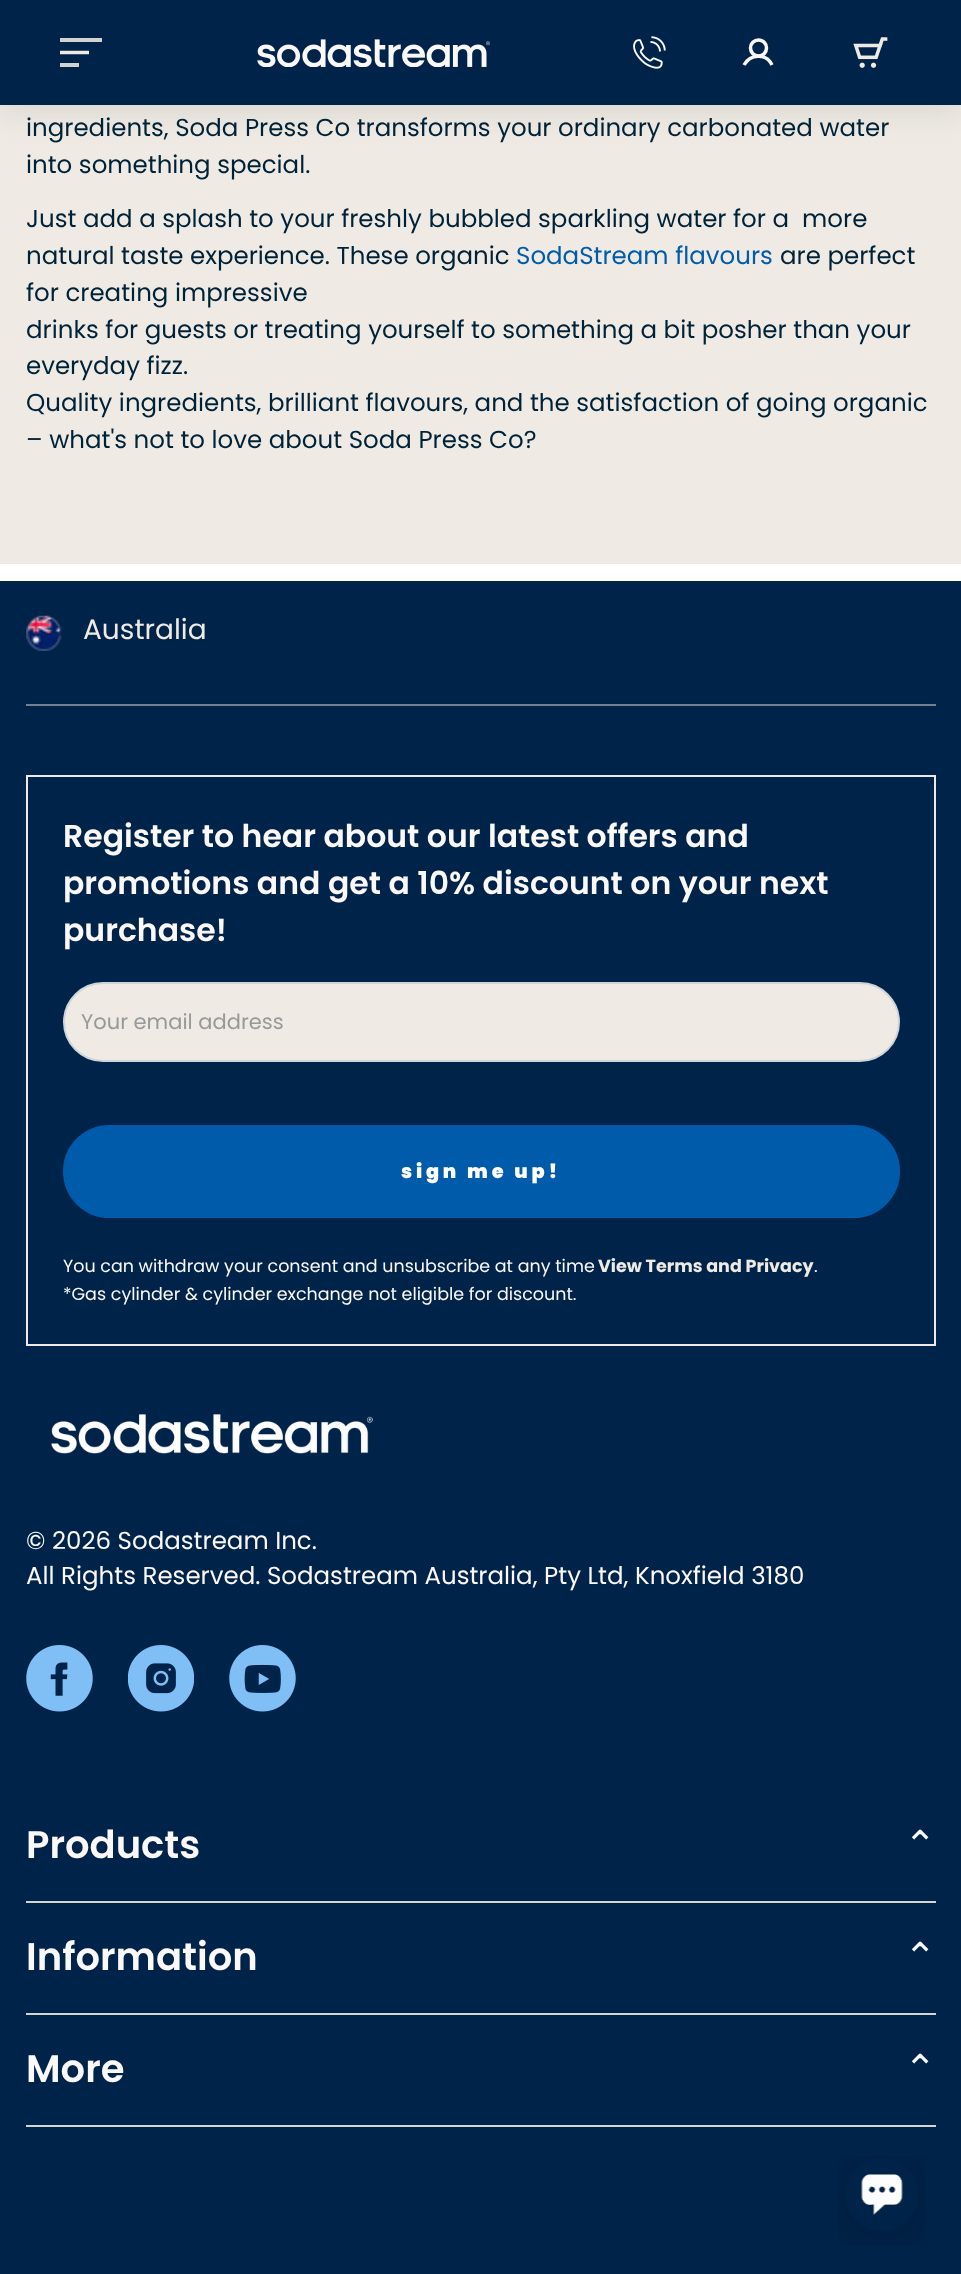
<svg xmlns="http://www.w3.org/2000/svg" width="961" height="2274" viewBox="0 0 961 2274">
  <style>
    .t1 { font: 24.5px Poppins; fill: #002238; }
    .t2 { font: 24.5px Poppins; fill: #005bab; }
    .t3 { font: 28px Poppins; fill: #efebe4; }
    .t4 { font: 600 31.5px Poppins; fill: #faf8f8; }
    .t5 { font: 21px Poppins; fill: #96999a; }
    .t6 { font: 900 19.25px Poppins; letter-spacing: 3.8px; fill: #fff; }
    .t7 { font: 17.5px Poppins; fill: #faf8f8; }
    .t8 { font: bold 17.5px Poppins; fill: #efebe4; }
    .t9 { font: 24.5px Poppins; fill: #faf8f8; }
    .t10 { font: 600 38.5px Poppins; fill: #faf8f8; }
    .t11 { font: 38.5px DejaVu Sans; fill: #faf8f8; }
  </style>
  <defs>
    <clipPath id="clip1"><rect x="60" y="32" width="42" height="42"/></clipPath>
  </defs>
  <rect width="100%" height="100%" fill="#fff"/>
  <rect x="0" y="105" width="961" height="459" fill="#efebe4"/>
  <rect x="0" y="5" width="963" height="105" fill="#52535326" filter="blur(17.5px)"/>
  <rect x="0" y="0" width="961" height="105" fill="#002349"/>
  <rect x="60" y="38" width="42" height="4" fill="#d1d2d1"/>
  <g clip-path="url(#clip1)">
    <path d="M59.5 52.5H89" fill="none" stroke="#efebe4" stroke-width="3.5"/>
  </g>
  <rect x="60" y="63" width="19" height="4" fill="#d1d2d1"/>
  <image x="257" y="39" width="233" height="28" href="images/1.png"/>
  <image x="633" y="36" width="33" height="33" href="images/2.png"/>
  <circle cx="758.5" cy="48" r="8" fill="none" stroke="#faf8f8" stroke-width="3.5"/>
  <path d="M744 65C750.5 53.5 766 53 772 65" fill="none" stroke="#faf8f8" stroke-width="3.5"/>
  <image x="853" y="37" width="35" height="31" href="images/3.png"/>
  <text x="26" y="136" class="t1">ingredients, Soda Press Co transforms your ordinary carbonated water</text>
  <text x="26" y="173" class="t1">into something special.</text>
  <text x="26" y="227" class="t1" xml:space="preserve">Just add a splash to your freshly bubbled sparkling water for a  more</text>
  <text x="26" y="264" class="t1">natural taste experience. These organic</text>
  <text x="516" y="264" class="t2">SodaStream flavours</text>
  <text x="780" y="264" class="t1">are perfect</text>
  <text x="26" y="301" class="t1">for creating impressive</text>
  <text x="26" y="338" class="t1">drinks for guests or treating yourself to something a bit posher than your</text>
  <text x="26" y="374" class="t1">everyday fizz.</text>
  <text x="26" y="411" class="t1">Quality ingredients, brilliant flavours, and the satisfaction of going organic</text>
  <text x="26" y="448" class="t1">– what's not to love about Soda Press Co?</text>
  <rect x="0" y="581" width="961" height="1693" fill="#002349"/>
  <image x="26" y="615" width="36" height="36" href="images/4.png"/>
  <text x="83" y="639" class="t3">Australia</text>
  <rect x="26" y="704" width="910" height="2" fill="#73808e"/>
  <rect x="27" y="776" width="908" height="569" fill="none" stroke="#efebe4" stroke-width="2"/>
  <text x="63" y="847" class="t4">Register to hear about our latest offers and</text>
  <text x="63" y="894" class="t4">promotions and get a 10% discount on your next</text>
  <text x="63" y="941" class="t4">purchase!</text>
  <rect x="64" y="983" width="835" height="78" rx="39" fill="#efebe4" stroke="#ced4da" stroke-width="2"/>
  <text x="81" y="1029" class="t5">Your email address</text>
  <rect x="64" y="1126" width="835" height="91" rx="45.5" fill="#005bab" stroke="#005bab" stroke-width="2"/>
  <text x="401" y="1178" class="t6">sign me up!</text>
  <text x="63" y="1272" class="t7">You can withdraw your consent and unsubscribe at any time</text>
  <text x="598" y="1272" class="t8">View Terms and Privacy</text>
  <text x="814" y="1272" class="t7">.</text>
  <text x="63" y="1300" class="t7">*Gas cylinder &amp; cylinder exchange not eligible for discount.</text>
  <image x="51" y="1414" width="322" height="40" href="images/5.png"/>
  <text x="26" y="1549" class="t9">© 2026 Sodastream Inc.</text>
  <text x="26" y="1584" class="t9">All Rights Reserved. Sodastream Australia, Pty Ltd, Knoxfield 3180</text>
  <image x="26" y="1645" width="67" height="67" href="images/6.png"/>
  <image x="128" y="1645" width="66" height="67" href="images/7.png"/>
  <image x="229" y="1645" width="67" height="67" href="images/8.png"/>
  <rect x="26" y="1901" width="910" height="2" fill="#d5d5d5"/>
  <text x="26" y="1858" class="t10">Products</text>
  <text x="904" y="1858" class="t11">⌃</text>
  <rect x="26" y="2013" width="910" height="2" fill="#d5d5d5"/>
  <text x="26" y="1970" class="t10">Information</text>
  <text x="904" y="1970" class="t11">⌃</text>
  <rect x="26" y="2125" width="910" height="2" fill="#d5d5d5"/>
  <text x="26" y="2082" class="t10">More</text>
  <text x="904" y="2082" class="t11">⌃</text>
  <image x="838" y="2156" width="88" height="90" href="images/9.png"/>
</svg>
